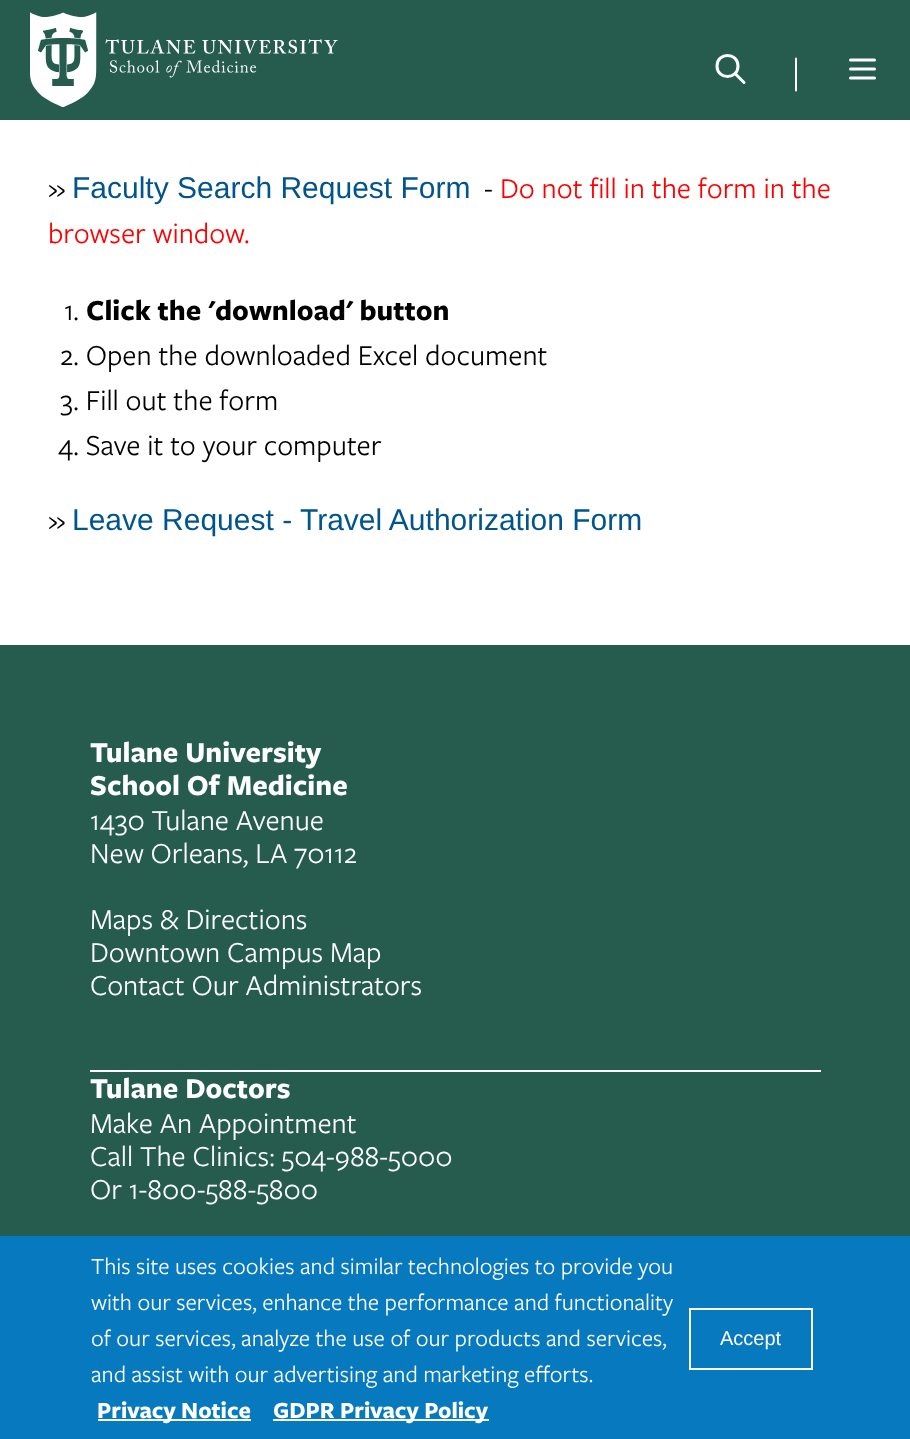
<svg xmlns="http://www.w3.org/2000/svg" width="910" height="1439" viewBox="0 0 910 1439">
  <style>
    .t1 { font: 30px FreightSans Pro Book; fill: #000; }
    .t2 { font: 30px Liberation Sans; fill: #00558c; }
    .t3 { font: 30px FreightSans Pro Book; fill: #f00; }
    .t4 { font: bold 30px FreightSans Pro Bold; fill: #000; }
    .t5 { font: bold 30px FreightSans Pro Bold; fill: #fff; }
    .t6 { font: 30px FreightSans Pro Book; fill: #fff; }
    .t7 { font: 24px FreightSans Pro Book; fill: #fff; }
    .t8 { font: bold 24px FreightSans Pro Bold; fill: #fff; }
    .t9 { font: 20px Liberation Sans; fill: #fff; }
  </style>
  <rect width="100%" height="100%" fill="#fff"/>
  <rect x="0" y="0" width="910" height="120" fill="#255c4e"/>
  <image x="30" y="12" width="308" height="95" href="images/1.png"/>
  <path d="M744 82.5L735 73.5M738 66C738 80 717 80 717 66C717 52 738 52 738 66Z" fill="none" stroke="#fff" stroke-width="3" stroke-linecap="round" stroke-linejoin="round"/>
  <path d="M796 90.5V58.5" fill="none" stroke="#fff" stroke-width="2" stroke-linecap="round" stroke-linejoin="round"/>
  <path d="M850.5 60H874.5M850.5 69H874.5M850.5 78H874.5" fill="none" stroke="#fff" stroke-width="3" stroke-linecap="round" stroke-linejoin="round"/>
  <text x="48" y="198" class="t1">»</text>
  <text x="72" y="198" class="t2">Faculty Search Request Form</text>
  <text x="484" y="198" class="t1">-</text>
  <text x="500" y="198" class="t3">Do not fill in the form in the</text>
  <text x="48" y="243" class="t3">browser window.</text>
  <text x="64" y="320" class="t1">1.</text>
  <text x="86" y="320" class="t4">Click the 'download' button</text>
  <text x="60" y="365" class="t1">2. Open the downloaded Excel document</text>
  <text x="60" y="410" class="t1">3. Fill out the form</text>
  <text x="58" y="455" class="t1">4. Save it to your computer</text>
  <text x="48" y="530" class="t1">»</text>
  <text x="72" y="530" class="t2">Leave Request - Travel Authorization Form</text>
  <rect x="0" y="645" width="910" height="591" fill="#255c4e"/>
  <text x="90" y="762" class="t5">Tulane University</text>
  <text x="90" y="795" class="t5">School Of Medicine</text>
  <text x="90" y="830" class="t6">1430 Tulane Avenue</text>
  <text x="90" y="863" class="t6">New Orleans, LA 70112</text>
  <text x="90" y="929" class="t6">Maps &amp; Directions</text>
  <text x="90" y="962" class="t6">Downtown Campus Map</text>
  <text x="90" y="995" class="t6">Contact Our Administrators</text>
  <rect x="90" y="1070" width="731" height="2" fill="#fff"/>
  <text x="90" y="1098" class="t5">Tulane Doctors</text>
  <text x="90" y="1133" class="t6">Make An Appointment</text>
  <text x="90" y="1166" class="t6">Call The Clinics: 504-988-5000</text>
  <text x="90" y="1199" class="t6">Or 1-800-588-5800</text>
  <rect x="0" y="1236" width="910" height="203" fill="#0779bf"/>
  <text x="91" y="1274" class="t7">This site uses cookies and similar technologies to provide you</text>
  <text x="91" y="1310" class="t7">with our services, enhance the performance and functionality</text>
  <text x="91" y="1346" class="t7">of our services, analyze the use of our products and services,</text>
  <text x="91" y="1382" class="t7">and assist with our advertising and marketing efforts.</text>
  <rect x="98" y="1419" width="153" height="2" fill="#fff"/>
  <text x="97" y="1418" class="t8">Privacy Notice</text>
  <rect x="273" y="1419" width="216" height="2" fill="#fff"/>
  <text x="273" y="1418" class="t8">GDPR Privacy Policy</text>
  <rect x="690" y="1309" width="122" height="60" fill="none" stroke="#fff" stroke-width="2"/>
  <text x="720" y="1345" class="t9">Accept</text>
</svg>
